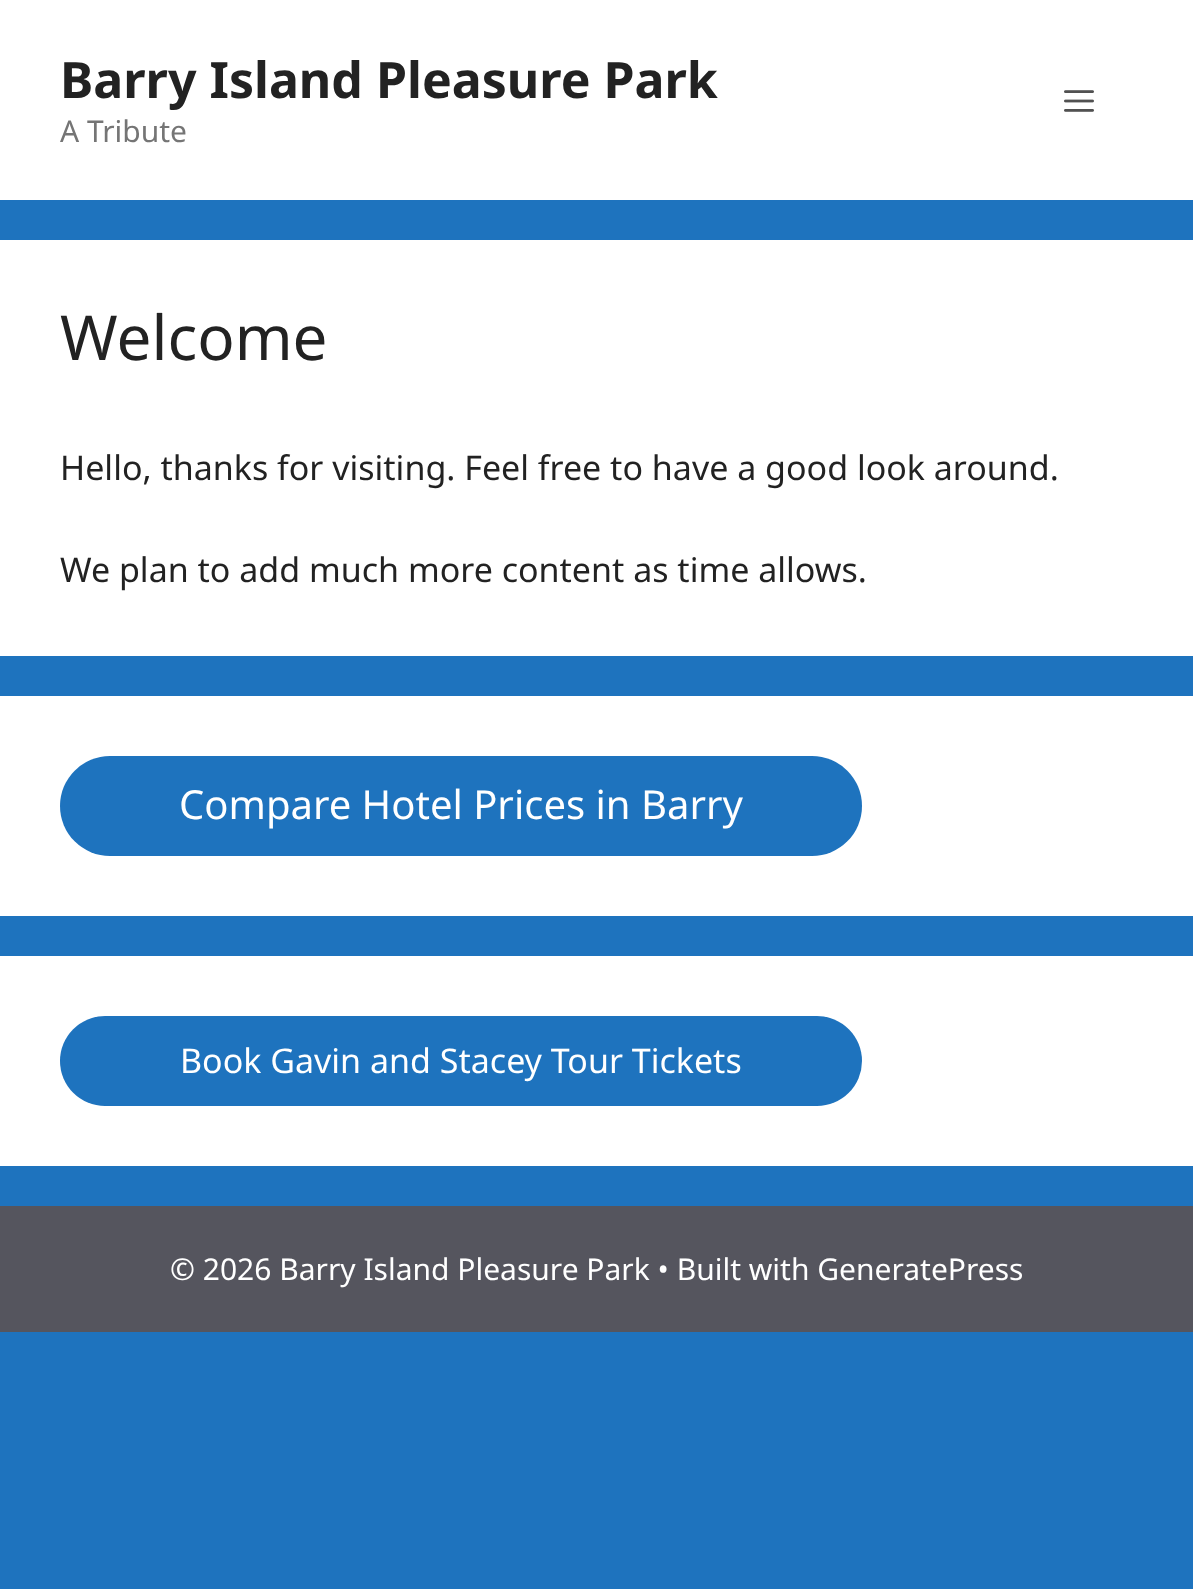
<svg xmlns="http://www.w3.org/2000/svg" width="1193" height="1589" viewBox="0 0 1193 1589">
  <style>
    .t1 { font: bold 50px Noto Sans; fill: #222; }
    .t2 { font: 30px Noto Sans; fill: #757575; }
    .t3 { font: 62px Noto Sans; fill: #222; }
    .t4 { font: 34px Noto Sans; fill: #222; }
    .t5 { font: 40px Noto Sans; fill: #fff; }
    .t6 { font: 34px Noto Sans; fill: #fff; }
    .t7 { font: 30px Noto Sans; fill: #fff; }
  </style>
  <rect width="100%" height="100%" fill="#1e73be"/>
  <rect x="0" y="0" width="1193" height="200" fill="#fff"/>
  <text x="60" y="98" class="t1">Barry Island Pleasure Park</text>
  <text x="60" y="142" class="t2">A Tribute</text>
  <image x="1064" y="90" width="30" height="22" href="images/1.png"/>
  <rect x="0" y="240" width="1193" height="416" fill="#fff"/>
  <text x="60" y="360" class="t3">Welcome</text>
  <text x="60" y="480" class="t4">Hello, thanks for visiting. Feel free to have a good look around.</text>
  <text x="60" y="582" class="t4">We plan to add much more content as time allows.</text>
  <rect x="0" y="696" width="1193" height="220" fill="#fff"/>
  <rect x="60" y="756" width="802" height="100" rx="50" fill="#1e73be"/>
  <text x="179" y="819" class="t5">Compare Hotel Prices in Barry</text>
  <rect x="0" y="956" width="1193" height="210" fill="#fff"/>
  <rect x="60" y="1016" width="802" height="90" rx="45" fill="#1e73be"/>
  <text x="180" y="1073" class="t6">Book Gavin and Stacey Tour Tickets</text>
  <rect x="0" y="1206" width="1193" height="126" fill="#55555e"/>
  <text x="170" y="1280" class="t7">© 2026 Barry Island Pleasure Park • Built with GeneratePress</text>
</svg>
